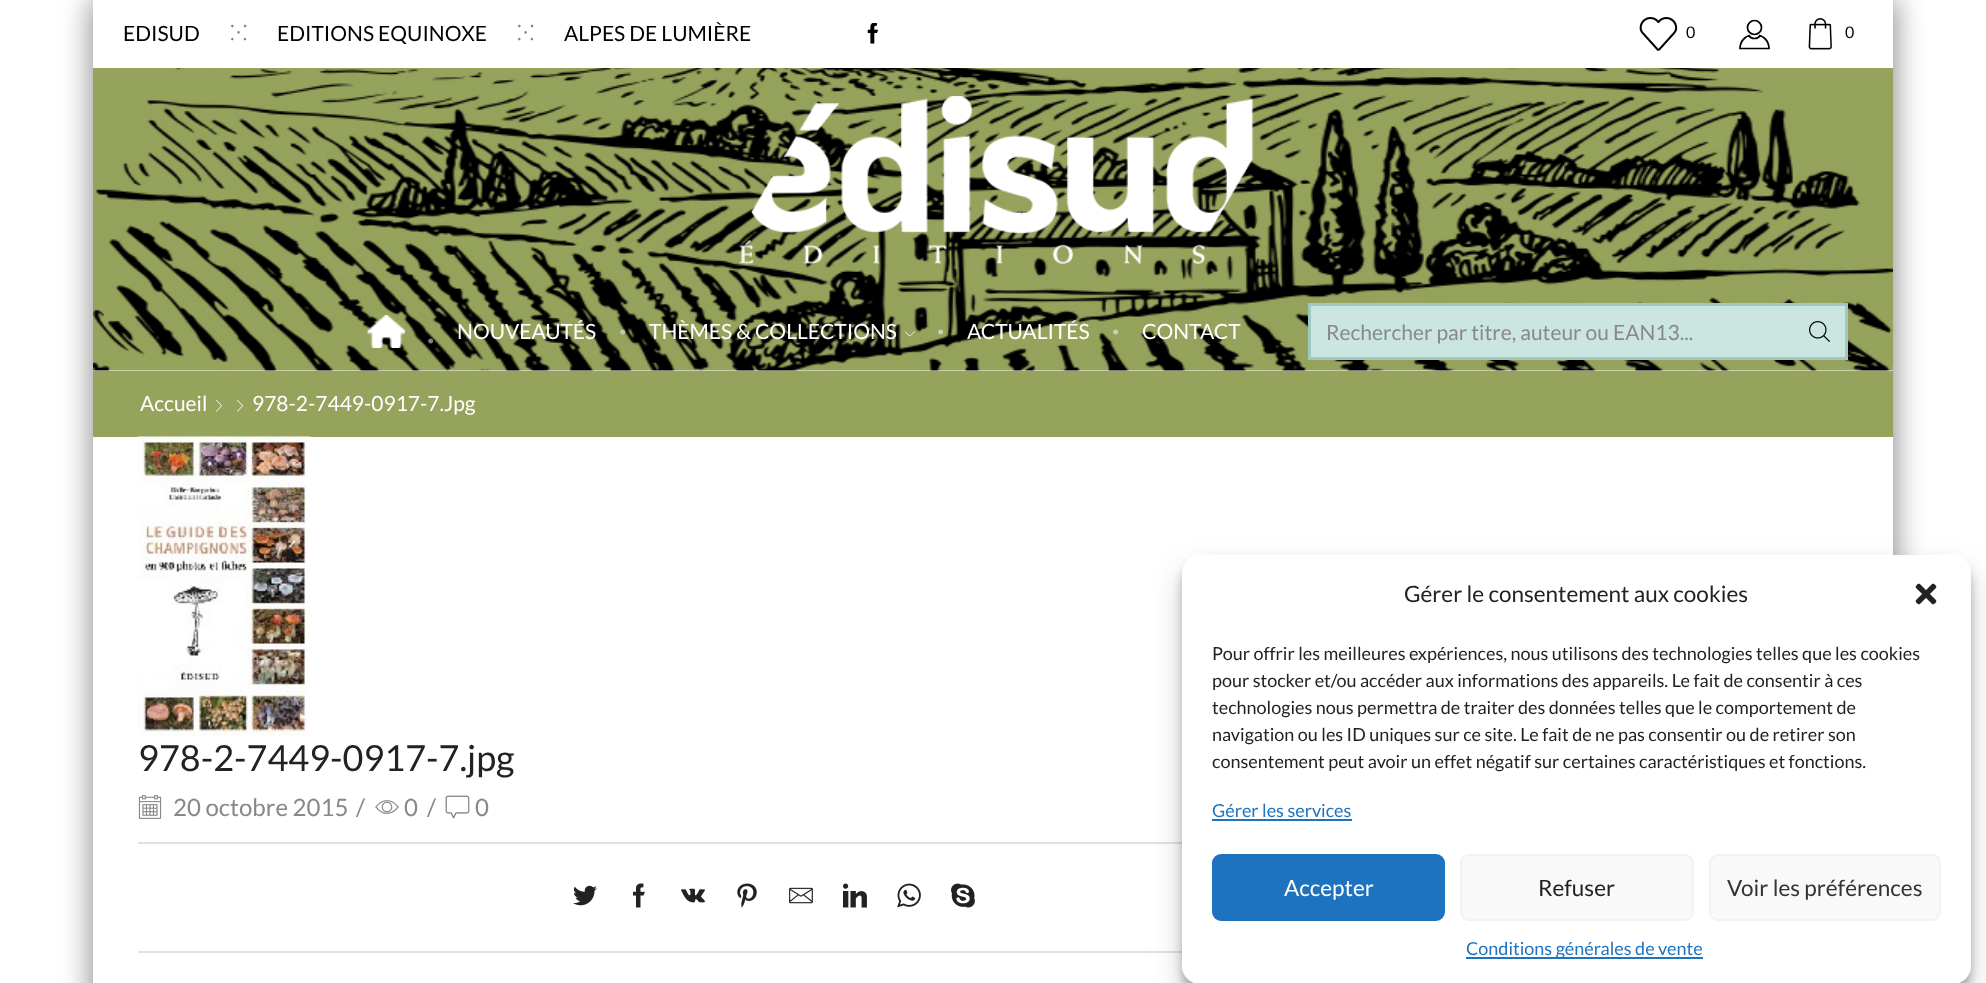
<svg xmlns="http://www.w3.org/2000/svg" width="1986" height="983" viewBox="0 0 1986 983">
  <style>
    .t1 { font: 21px Lato; fill: #000; }
    .t2 { font: 21px Noto Sans; fill: #808080; }
    .t3 { font: 16px Lato; fill: #000; }
    .t4 { font: 21px Lato; fill: #fff; }
    .t5 { font: 21px Liberation Serif; fill: #c4cbaa; }
    .t6 { font: 21px Liberation Serif; fill: #cad1ae; }
    .t7 { font: 21px Liberation Serif; fill: #808080; }
    .t8 { font: 21px Lato; fill: #888; }
    .t9 { font: 36px Lato; fill: #222; }
    .t10 { font: 24px Lato; fill: #888; }
    .t11 { font: 22.5px Lato; fill: #222; }
    .t12 { font: 18px Lato; fill: #222; }
    .t13 { font: 18px Lato; fill: #1e73be; }
    .t14 { font: 22.5px Lato; fill: #fff; }
    .t15 { font: 22.5px Lato; fill: #333; }
  </style>
  <defs>
    <clipPath id="clip1"><path d="M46 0H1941V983H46ZM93 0H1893V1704H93Z" clip-rule="evenodd"/></clipPath>
  </defs>
  <rect width="100%" height="100%" fill="#fff"/>
  <g clip-path="url(#clip1)">
    <rect x="92" y="-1" width="1803" height="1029" fill="#888" filter="blur(15px)"/>
  </g>
  <image x="93" y="68" width="1800" height="303" href="images/1.png"/>
  <text x="123" y="41" class="t1">EDISUD</text>
  <text x="230" y="40" class="t2">⁙</text>
  <text x="277" y="41" class="t1">EDITIONS EQUINOXE</text>
  <text x="517" y="40" class="t2">⁙</text>
  <text x="564" y="41" class="t1">ALPES DE LUMIÈRE</text>
  <image x="867" y="23" width="12" height="21" href="images/2.png"/>
  <image x="1639" y="17" width="39" height="34" href="images/3.png"/>
  <text x="1686" y="38" class="t3">0</text>
  <circle cx="1754.5" cy="27.5" r="7" fill="none" stroke="#000" stroke-width="1.7"/>
  <path d="M1754.5 48.5H1740C1740 38.5 1749 35.5 1749 35.5C1751 39.5 1758 39.5 1760 35.5C1760 35.5 1769 38.5 1769 48.5Z" fill="none" stroke="#000" stroke-width="1.7"/>
  <image x="1808" y="18" width="24" height="32" href="images/4.png"/>
  <text x="1845" y="38" class="t3">0</text>
  <image x="738" y="96" width="516" height="168" href="images/5.png"/>
  <text x="457" y="339" class="t4">NOUVEAUTÉS</text>
  <text x="619" y="339" class="t5">•</text>
  <text x="649" y="339" class="t4">THÈMES &amp; COLLECTIONS</text>
  <image x="905" y="331" width="10" height="6" href="images/6.png"/>
  <text x="937" y="339" class="t6">•</text>
  <text x="967" y="339" class="t4">ACTUALITÉS</text>
  <text x="1112" y="339" class="t6">•</text>
  <text x="1142" y="339" class="t4">CONTACT</text>
  <image x="367" y="315" width="38" height="33" href="images/7.png"/>
  <text x="427" y="348" class="t7">•</text>
  <rect x="1309.5" y="304.5" width="537" height="54" fill="#cbe6e1" stroke="#9fc8c0" stroke-width="3"/>
  <text x="1326" y="340" class="t8">Rechercher par titre, auteur ou EAN13...</text>
  <image x="1809" y="321" width="21" height="21" href="images/8.png"/>
  <rect x="93" y="371" width="1800" height="66" fill="#96a35d"/>
  <text x="140" y="411" class="t4">Accueil</text>
  <image x="216" y="399" width="6" height="13" href="images/9.png"/>
  <image x="237" y="399" width="6" height="13" href="images/9.png"/>
  <text x="252" y="411" class="t4">978-2-7449-0917-7.Jpg</text>
  <image x="138" y="436" width="173" height="301" href="images/10.png"/>
  <text x="138" y="771" class="t9">978-2-7449-0917-7.jpg</text>
  <image x="138" y="795" width="24" height="24" href="images/11.png"/>
  <text x="173" y="816" class="t10">20 octobre 2015</text>
  <text x="356" y="816" class="t10">/</text>
  <image x="375" y="800" width="24" height="14" href="images/12.png"/>
  <text x="404" y="816" class="t10">0</text>
  <text x="427" y="816" class="t10">/</text>
  <image x="445" y="795" width="25" height="24" href="images/13.png"/>
  <text x="475" y="816" class="t10">0</text>
  <rect x="138" y="842" width="1044" height="2" fill="#e1e1e1"/>
  <rect x="138" y="951" width="1044" height="2" fill="#e1e1e1"/>
  <image x="573" y="885" width="24" height="21" href="images/14.png"/>
  <image x="633" y="883" width="12" height="25" href="images/15.png"/>
  <image x="681" y="888" width="24" height="15" href="images/16.png"/>
  <image x="737" y="883" width="20" height="25" href="images/17.png"/>
  <image x="789" y="887" width="24" height="17" href="images/18.png"/>
  <image x="843" y="883" width="24" height="25" href="images/19.png"/>
  <image x="897" y="883" width="24" height="25" href="images/20.png"/>
  <image x="951" y="883" width="24" height="25" href="images/21.png"/>
  <rect x="1182" y="564" width="789" height="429" rx="18" fill="#0000003b" filter="blur(4.5px)"/>
  <rect x="1182" y="570" width="789" height="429" rx="18" fill="#00000030" filter="blur(15px)"/>
  <rect x="1182" y="555" width="789" height="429" rx="18" fill="#fff"/>
  <text x="1404" y="602" class="t11">Gérer le consentement aux cookies</text>
  <image x="1915" y="583" width="22" height="22" href="images/22.png"/>
  <text x="1212" y="660" class="t12">Pour offrir les meilleures expériences, nous utilisons des technologies telles que les cookies</text>
  <text x="1212" y="687" class="t12">pour stocker et/ou accéder aux informations des appareils. Le fait de consentir à ces</text>
  <text x="1212" y="714" class="t12">technologies nous permettra de traiter des données telles que le comportement de</text>
  <text x="1212" y="741" class="t12">navigation ou les ID uniques sur ce site. Le fait de ne pas consentir ou de retirer son</text>
  <text x="1212" y="768" class="t12">consentement peut avoir un effet négatif sur certaines caractéristiques et fonctions.</text>
  <text x="1212" y="817" class="t13">Gérer les services</text>
  <rect x="1212" y="819" width="140" height="2" fill="#1e73be"/>
  <rect x="1213" y="855" width="231" height="65" rx="8" fill="#1e73be" stroke="#1e73be" stroke-width="2"/>
  <text x="1284" y="896" class="t14">Accepter</text>
  <rect x="1461" y="855" width="232" height="65" rx="8" fill="#f9f9f9" stroke="#f2f2f2" stroke-width="2"/>
  <text x="1538" y="896" class="t11">Refuser</text>
  <rect x="1710" y="855" width="230" height="65" rx="8" fill="#f9f9f9" stroke="#f2f2f2" stroke-width="2"/>
  <text x="1727" y="896" class="t15">Voir les préférences</text>
  <rect x="1466" y="957" width="237" height="2" fill="#1e73be"/>
  <text x="1466" y="955" class="t13">Conditions générales de vente</text>
</svg>
